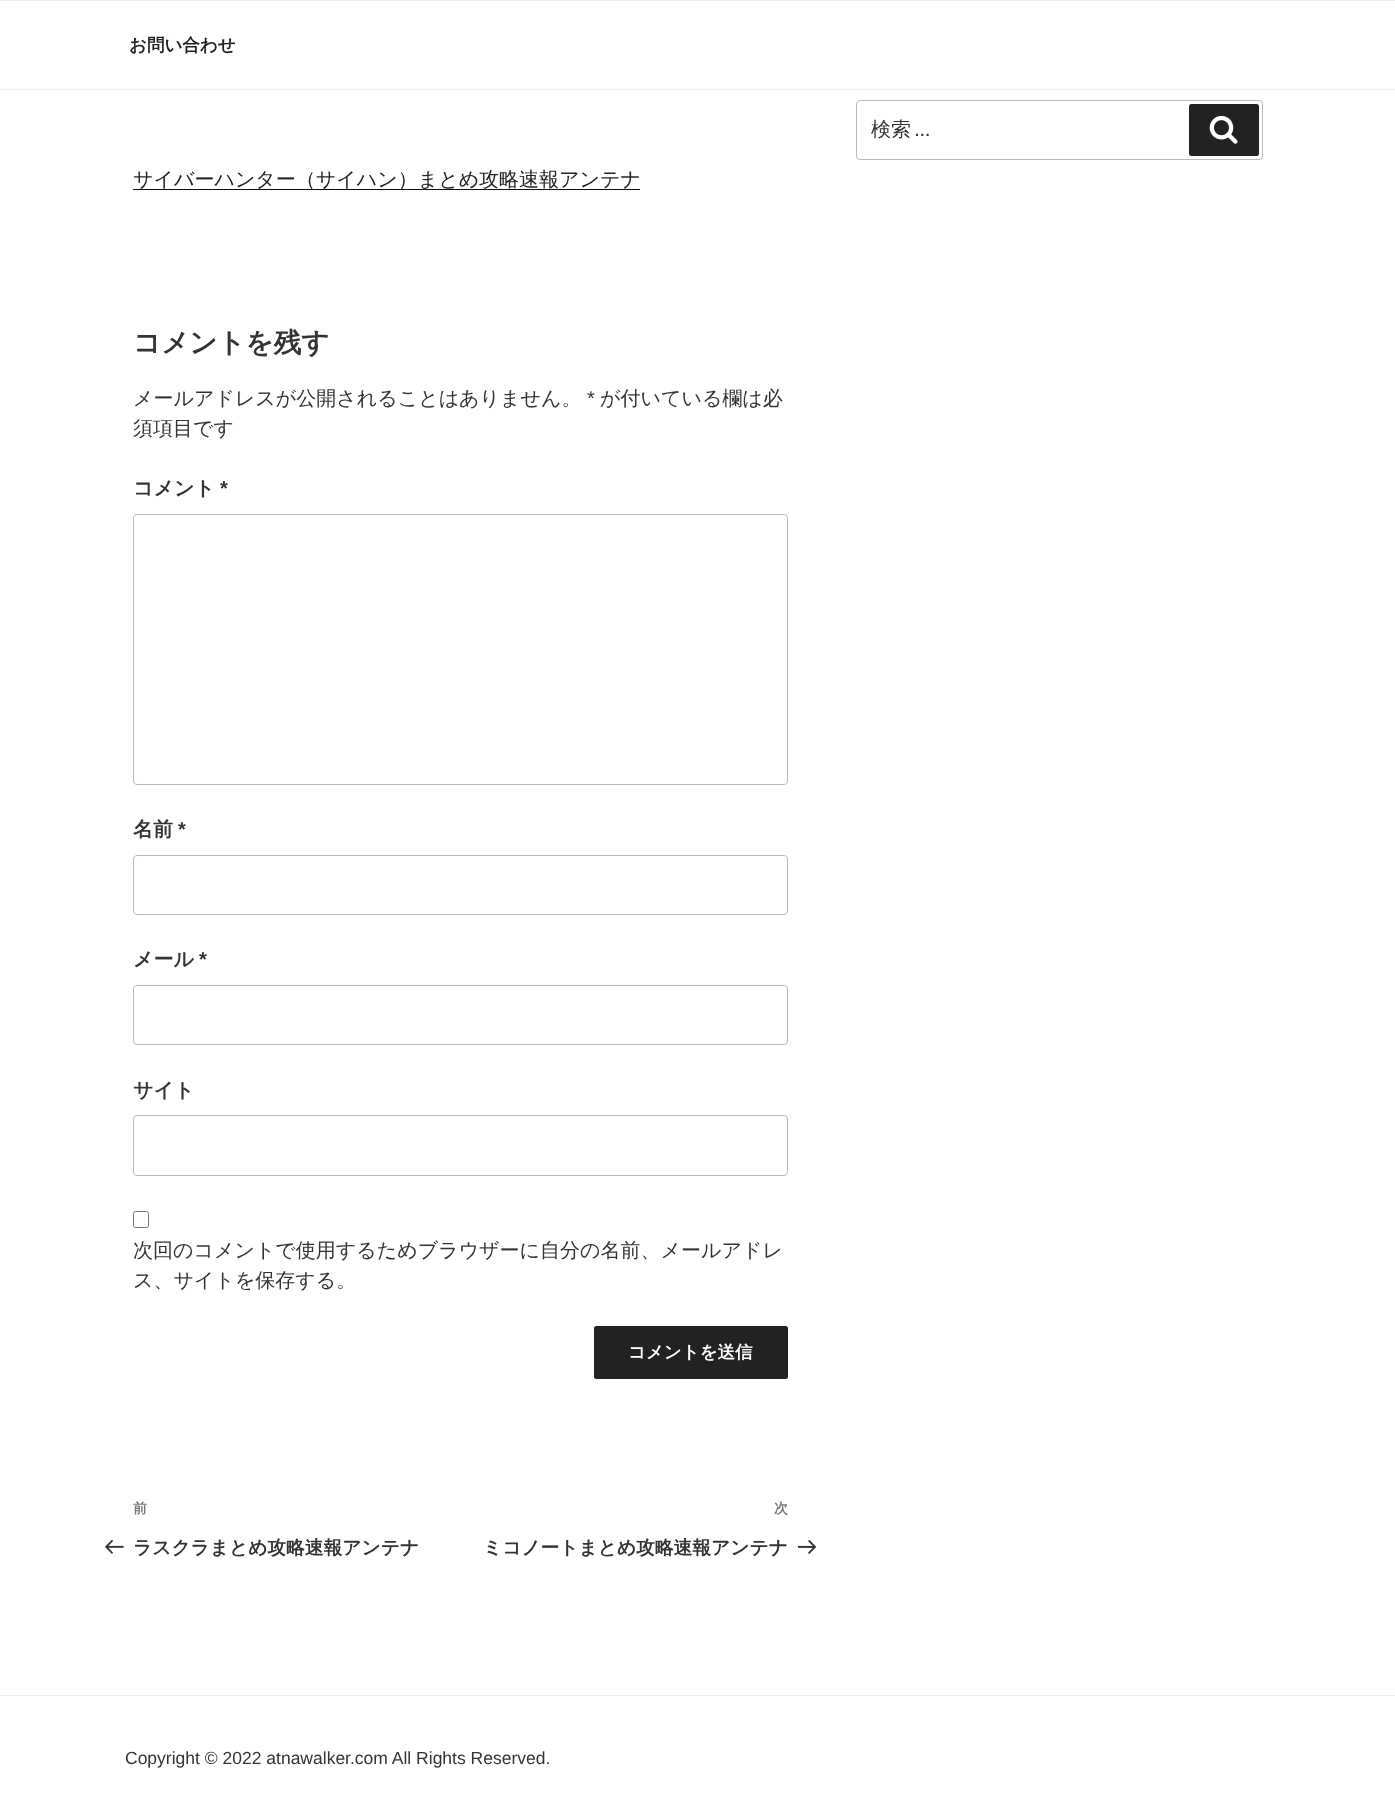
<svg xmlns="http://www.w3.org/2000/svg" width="1395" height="1815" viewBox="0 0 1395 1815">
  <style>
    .t1 { font: bold 17.5px WenQuanYi Zen Hei; fill: #222; }
    .t2 { font: 500 20px WenQuanYi Zen Hei; fill: #333; }
    .t3 { font: 20px Libre Franklin; fill: #333; }
    .t4 { font: 500 20px WenQuanYi Zen Hei; fill: #222; }
    .t5 { font: bold 27.5px WenQuanYi Zen Hei; fill: #333; }
    .t6 { font: 20px Liberation Sans; fill: #333; }
    .t7 { font: bold 20px WenQuanYi Zen Hei; fill: #333; }
    .t8 { font: bold 20px Liberation Sans; fill: #333; }
    .t9 { font: bold 17.5px WenQuanYi Zen Hei; fill: #fff; }
    .t10 { font: bold 14px WenQuanYi Zen Hei; fill: #767676; }
    .t11 { font: bold 18.75px WenQuanYi Zen Hei; fill: #333; }
    .t12 { font: 17.5px Liberation Sans; fill: #333; }
  </style>
  <rect width="100%" height="100%" fill="#fff"/>
  <rect x="0" y="0" width="1395" height="1" fill="#eee"/>
  <rect x="0" y="89" width="1395" height="1" fill="#eee"/>
  <text x="129" y="51" class="t1">お問い合わせ</text>
  <rect x="856.5" y="100.5" width="406" height="59" rx="3.5" fill="none" stroke="#bbb"/>
  <text x="871" y="136" class="t2">検索</text>
  <text x="915" y="136" class="t3">…</text>
  <rect x="1189" y="104" width="70" height="52" rx="2.5" fill="#222"/>
  <image x="1209" y="115" width="29" height="29" href="images/1.png"/>
  <rect x="133" y="189" width="507" height="1" fill="#0f0f0f"/>
  <text x="133" y="186" class="t4">サイバーハンター（サイハン）まとめ攻略速報アンテナ</text>
  <text x="133" y="352" class="t5">コメントを残す</text>
  <text x="133" y="405" class="t2">メールアドレスが公開されることはありません。</text>
  <text x="587" y="405" class="t6">*</text>
  <text x="600" y="405" class="t2">が付いている欄は必</text>
  <text x="133" y="435" class="t2">須項目です</text>
  <text x="133" y="495" class="t7">コメント</text>
  <text x="220" y="495" class="t8">*</text>
  <rect x="133.5" y="514.5" width="654" height="270" rx="3.5" fill="none" stroke="#bbb"/>
  <text x="133" y="836" class="t7">名前</text>
  <text x="178" y="836" class="t8">*</text>
  <rect x="133.5" y="855.5" width="654" height="59" rx="3.5" fill="none" stroke="#bbb"/>
  <text x="133" y="966" class="t7">メール</text>
  <text x="199" y="966" class="t8">*</text>
  <rect x="133.5" y="985.5" width="654" height="59" rx="3.5" fill="none" stroke="#bbb"/>
  <text x="133" y="1097" class="t7">サイト</text>
  <rect x="133.5" y="1115.5" width="654" height="60" rx="3.5" fill="none" stroke="#bbb"/>
  <rect x="133.5" y="1211.5" width="15" height="16" rx="2" fill="none" stroke="#767676"/>
  <text x="133" y="1257" class="t2">次回のコメントで使用するためブラウザーに自分の名前、メールアドレ</text>
  <text x="133" y="1287" class="t2">ス、サイトを保存する。</text>
  <rect x="594" y="1326" width="194" height="53" rx="2.5" fill="#222"/>
  <text x="628" y="1358" class="t9">コメントを送信</text>
  <text x="133" y="1513" class="t10">前</text>
  <image x="105" y="1540" width="19" height="14" href="images/2.png"/>
  <text x="133" y="1554" class="t11">ラスクラまとめ攻略速報アンテナ</text>
  <text x="774" y="1513" class="t10">次</text>
  <text x="483" y="1554" class="t11">ミコノートまとめ攻略速報アンテナ</text>
  <image x="798" y="1540" width="18" height="14" href="images/3.png"/>
  <rect x="0" y="1695" width="1395" height="1" fill="#eee"/>
  <text x="125" y="1764" class="t12">Copyright © 2022 atnawalker.com All Rights Reserved.</text>
</svg>
